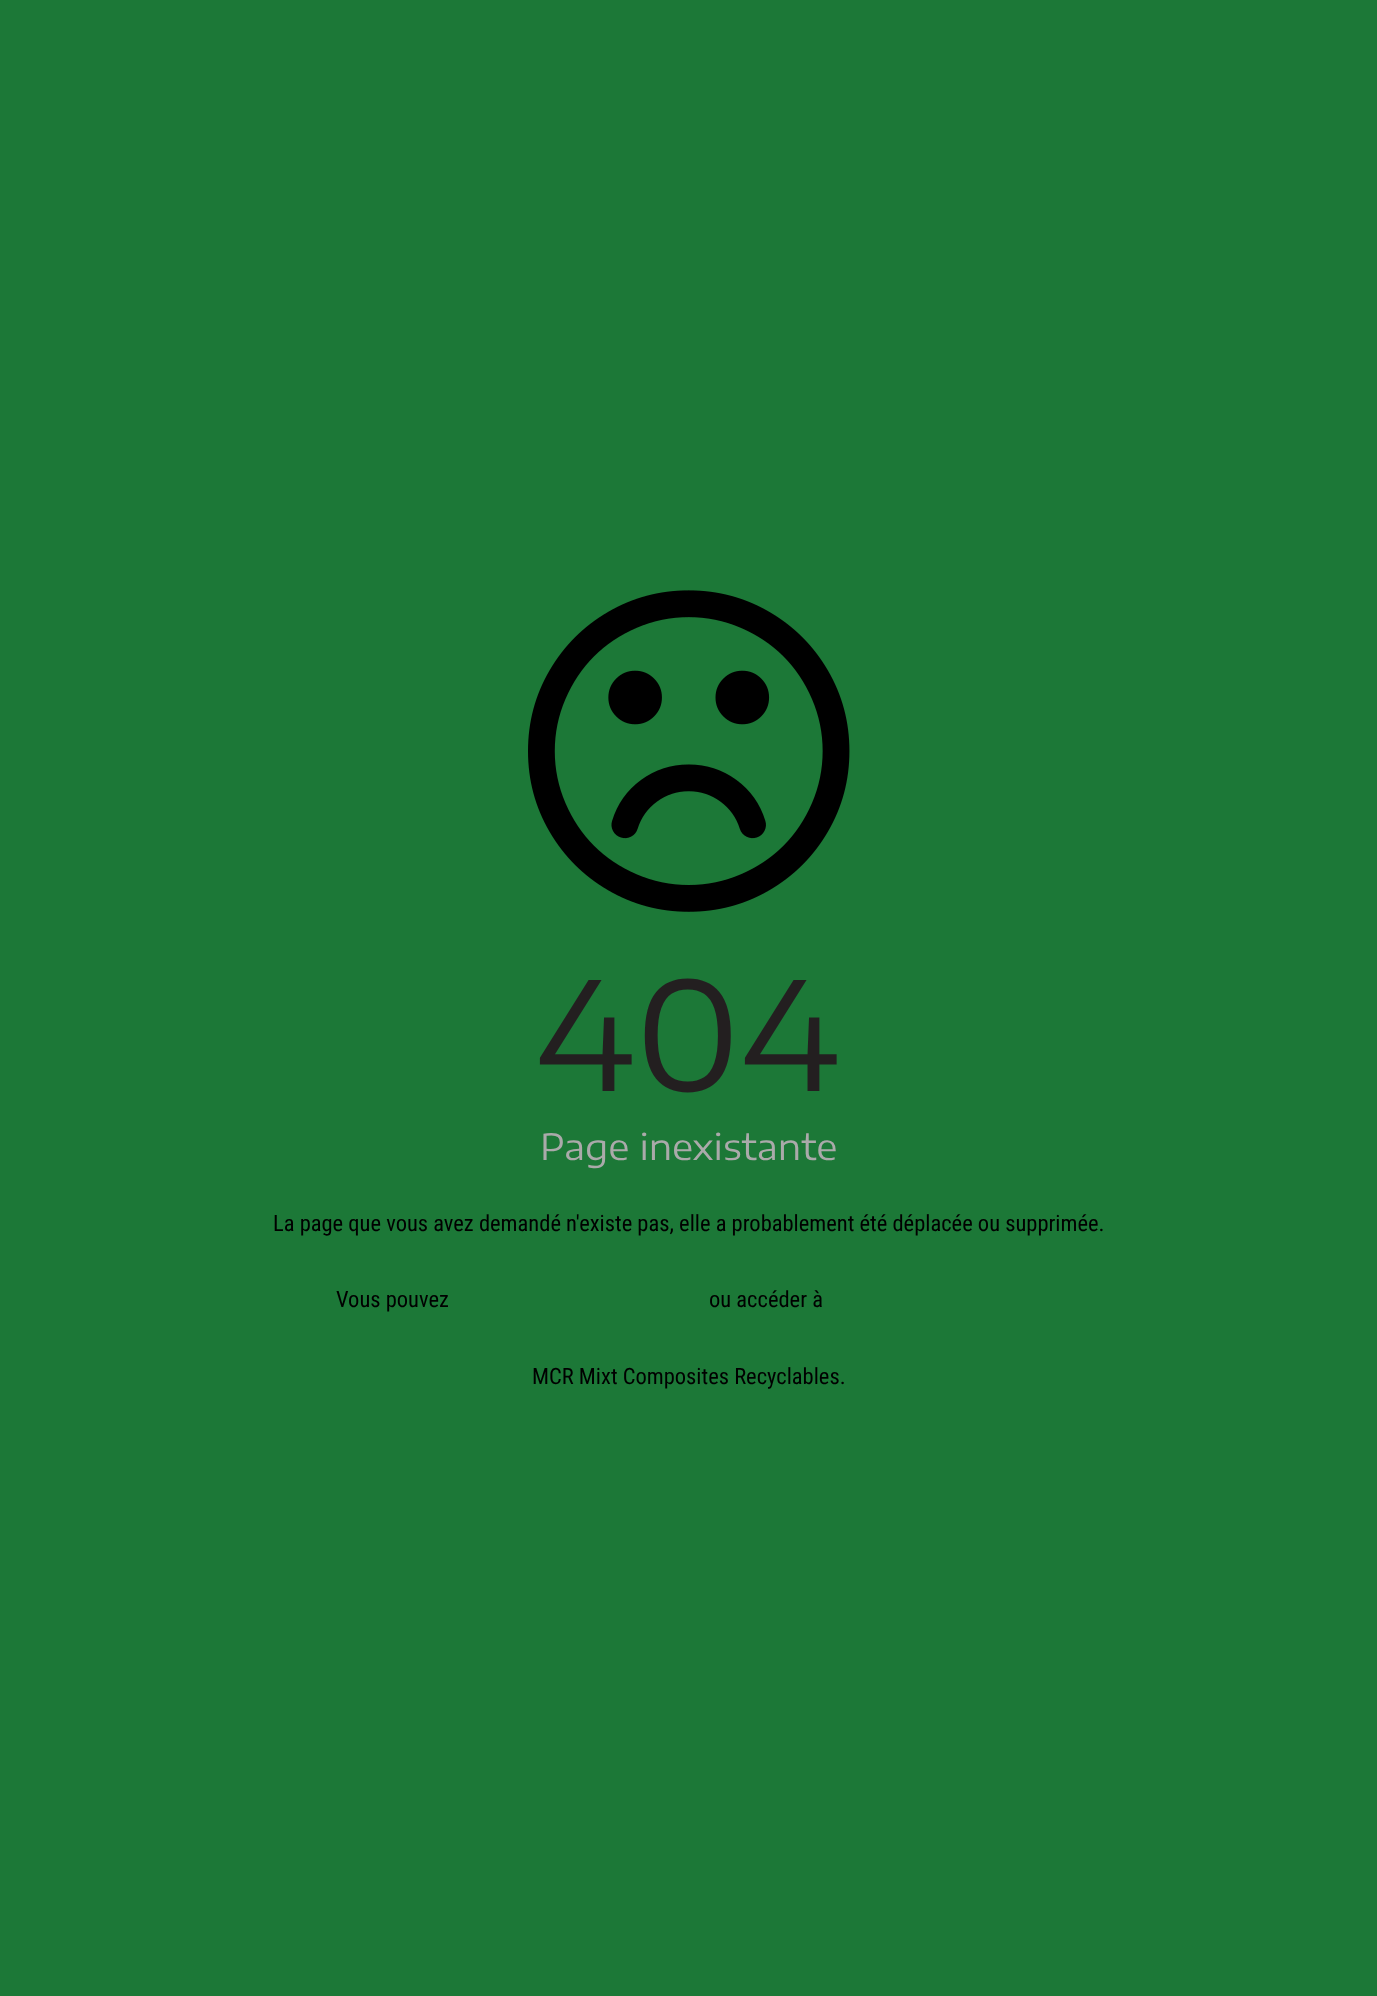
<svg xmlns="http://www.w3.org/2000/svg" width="1377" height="1996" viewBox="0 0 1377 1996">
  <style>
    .t1 { font: 150px Encode Sans Expanded; fill: #231f20; }
    .t2 { font: 36px Encode Sans Expanded; fill: #aaa; }
    .t3 { font: 22.5px Roboto Condensed; fill: #000; }
  </style>
  <rect width="100%" height="100%" fill="#1c7837"/>
  <image x="528" y="590" width="322" height="322" href="images/1.png"/>
  <text x="536" y="1091" class="t1">404</text>
  <text x="540" y="1160" class="t2">Page inexistante</text>
  <text x="273" y="1231" class="t3">La page que vous avez demandé n'existe pas, elle a probablement été déplacée ou supprimée.</text>
  <text x="336" y="1307" class="t3">Vous pouvez</text>
  <text x="709" y="1307" class="t3">ou accéder à</text>
  <text x="532" y="1384" class="t3">MCR Mixt Composites Recyclables.</text>
</svg>
